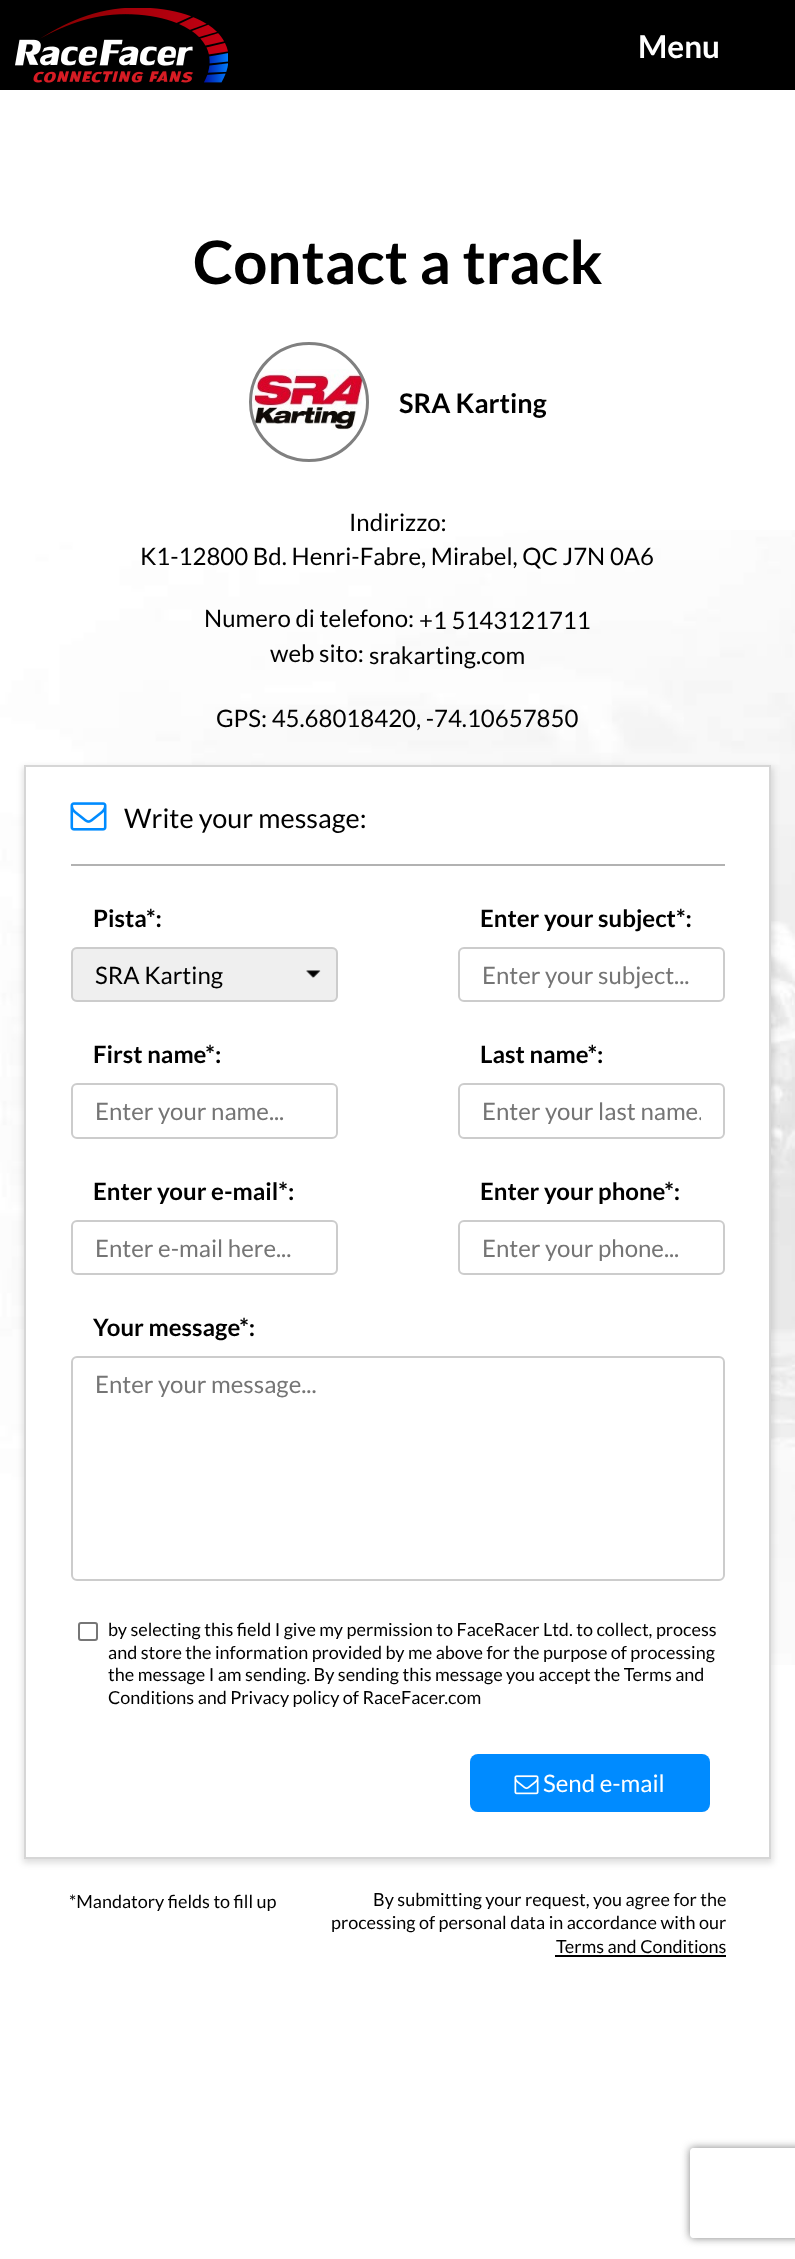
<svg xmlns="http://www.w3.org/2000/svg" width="795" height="2259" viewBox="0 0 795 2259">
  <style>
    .t1 { font: bold 31.5px Lato; fill: #fff; }
    .t2 { font: bold 60px Lato; fill: #000; }
    .t3 { font: bold 27px Lato; fill: #000; }
    .t4 { font: 24px Lato; fill: #000; }
    .t5 { font: 27px Lato; fill: #000; }
    .t6 { font: bold 24px Lato; fill: #000; }
    .t7 { font: 24px Lato; fill: #757575; }
    .t8 { font: 18px Lato; fill: #000; }
    .t9 { font: 24px Lato; fill: #fff; }
  </style>
  <defs>
    <clipPath id="clip1"><rect x="482" y="1097" width="219" height="28"/></clipPath>
    <clipPath id="clip2"><path d="M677 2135H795V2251H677ZM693 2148H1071C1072.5 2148 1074 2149.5 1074 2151V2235C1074 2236.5 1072.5 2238 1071 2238H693C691.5 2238 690 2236.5 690 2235V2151C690 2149.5 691.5 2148 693 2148Z" clip-rule="evenodd"/></clipPath>
  </defs>
  <rect width="100%" height="100%" fill="#fff"/>
  <rect x="0" y="0" width="795" height="90" fill="#000"/>
  <image x="15" y="8" width="213" height="75" href="images/1.png"/>
  <text x="638" y="58" class="t1">Menu</text>
  <image x="0" y="530" width="795" height="1135" href="images/2.png"/>
  <text x="193" y="284" class="t2">Contact a track</text>
  <image x="252" y="369" width="114" height="61" href="images/3.png"/>
  <circle cx="309" cy="402" r="58.5" fill="none" stroke="#808080" stroke-width="3"/>
  <text x="399" y="413" class="t3">SRA Karting</text>
  <text x="349" y="531" class="t4">Indirizzo:</text>
  <text x="140" y="565" class="t4">K1-12800 Bd. Henri-Fabre, Mirabel, QC J7N 0A6</text>
  <text x="204" y="627" class="t4">Numero di telefono:</text>
  <text x="419" y="629" class="t4">+1 5143121711</text>
  <text x="270" y="662" class="t4">web sito:</text>
  <text x="369" y="664" class="t4">srakarting.com</text>
  <text x="216" y="727" class="t4">GPS: 45.68018420, -74.10657850</text>
  <rect x="23" y="767" width="750" height="1096" fill="#00000021" filter="blur(3px)"/>
  <rect x="25" y="766" width="745" height="1092" fill="#fff" stroke="#d6d6d6" stroke-width="2"/>
  <rect x="71" y="864" width="654" height="2" fill="#b2b2b2"/>
  <image x="70" y="802" width="37" height="29" href="images/4.png"/>
  <text x="124" y="828" class="t5">Write your message:</text>
  <text x="93" y="927" class="t6">Pista*:</text>
  <rect x="71" y="947" width="267" height="55" rx="6" fill="#efefef"/>
  <image x="306" y="970" width="15" height="8" href="images/5.png"/>
  <rect x="72" y="948" width="265" height="53" rx="5" fill="none" stroke="#ccc" stroke-width="2"/>
  <text x="95" y="984" class="t4">SRA Karting</text>
  <text x="480" y="927" class="t6">Enter your subject*:</text>
  <rect x="459" y="948" width="265" height="53" rx="5" fill="none" stroke="#ccc" stroke-width="2"/>
  <text x="482" y="984" class="t7">Enter your subject...</text>
  <text x="93" y="1063" class="t6">First name*:</text>
  <rect x="72" y="1084" width="265" height="54" rx="5" fill="none" stroke="#ccc" stroke-width="2"/>
  <text x="95" y="1120" class="t7">Enter your name...</text>
  <text x="480" y="1063" class="t6">Last name*:</text>
  <rect x="459" y="1084" width="265" height="54" rx="5" fill="none" stroke="#ccc" stroke-width="2"/>
  <g clip-path="url(#clip1)">
    <text x="482" y="1120" class="t7">Enter your last name.</text>
  </g>
  <text x="93" y="1200" class="t6">Enter your e-mail*:</text>
  <rect x="72" y="1221" width="265" height="53" rx="5" fill="none" stroke="#ccc" stroke-width="2"/>
  <text x="95" y="1257" class="t7">Enter e-mail here...</text>
  <text x="480" y="1200" class="t6">Enter your phone*:</text>
  <rect x="459" y="1221" width="265" height="53" rx="5" fill="none" stroke="#ccc" stroke-width="2"/>
  <text x="482" y="1257" class="t7">Enter your phone...</text>
  <text x="93" y="1336" class="t6">Your message*:</text>
  <rect x="72" y="1357" width="652" height="223" rx="5" fill="none" stroke="#ccc" stroke-width="2"/>
  <text x="95" y="1393" class="t7">Enter your message...</text>
  <rect x="79" y="1623" width="18" height="17" rx="2" fill="none" stroke="#767676" stroke-width="2"/>
  <text x="108" y="1636" class="t8">by selecting this field I give my permission to FaceRacer Ltd. to collect, process</text>
  <text x="108" y="1659" class="t8">and store the information provided by me above for the purpose of processing</text>
  <text x="108" y="1681" class="t8">the message I am sending. By sending this message you accept the Terms and</text>
  <text x="108" y="1704" class="t8">Conditions and Privacy policy of RaceFacer.com</text>
  <rect x="470" y="1754" width="240" height="58" rx="8" fill="#008bff"/>
  <image x="514" y="1775" width="25" height="20" href="images/6.png"/>
  <text x="543" y="1792" class="t9">Send e-mail</text>
  <text x="69" y="1908" class="t8">*Mandatory fields to fill up</text>
  <text x="373" y="1906" class="t8">By submitting your request, you agree for the</text>
  <text x="331" y="1929" class="t8">processing of personal data in accordance with our</text>
  <text x="556" y="1953" class="t8">Terms and Conditions</text>
  <rect x="555" y="1955" width="171" height="2" fill="#000"/>
  <g clip-path="url(#clip2)">
    <rect x="690" y="2148" width="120" height="90" rx="3" fill="#808080" filter="blur(4px)"/>
  </g>
</svg>
